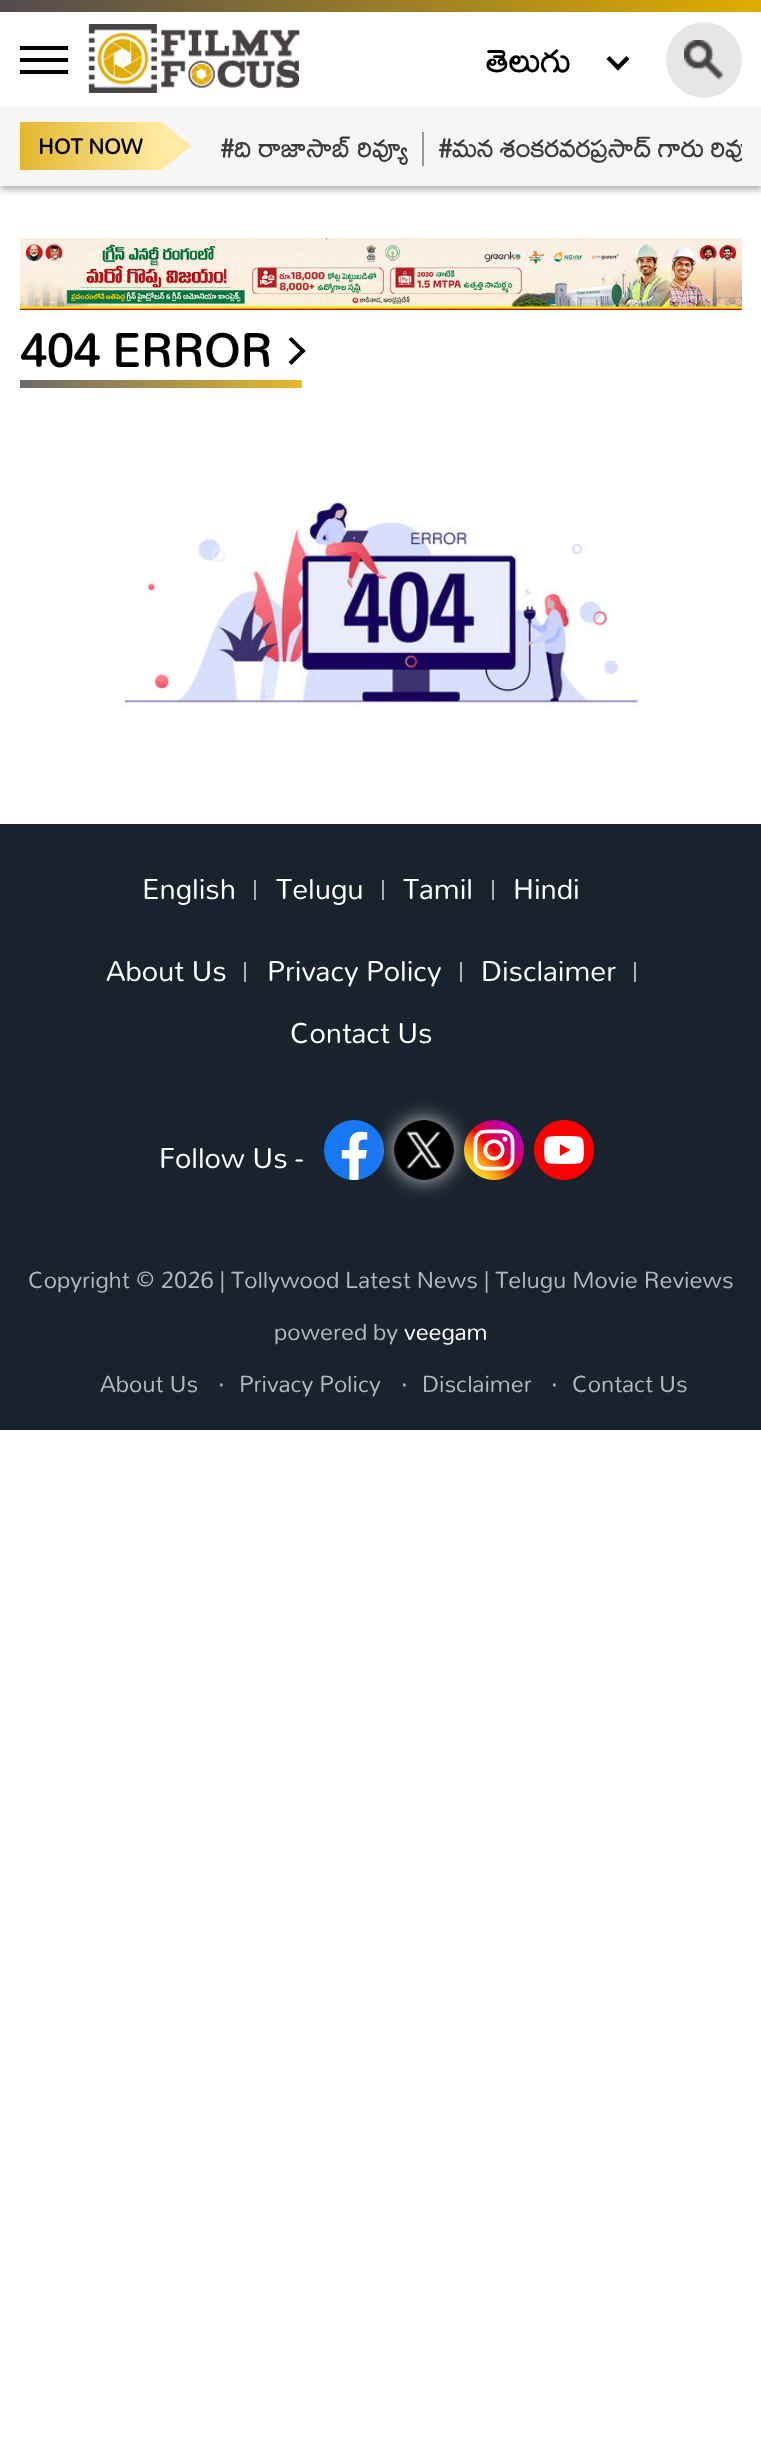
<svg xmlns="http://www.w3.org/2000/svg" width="761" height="2447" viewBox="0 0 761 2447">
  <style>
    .t1 { font: bold 36px Mallanna; fill: #000; }
    .t2 { font: bold 24px Mallanna; fill: #000; }
    .t3 { font: bold 28px Mallanna; fill: #3d3d3d; }
    .t4 { font: bold 52px Mallanna; fill: #000; }
    .t5 { font: 32px Mallanna; fill: #fff; }
    .t6 { font: 26px Mallanna; fill: #b6b7b9; }
    .t7 { font: 26px Mallanna; fill: #fff; }
    .t8 { font: 26px Liberation Sans; fill: #b6b7b9; }
  </style>
  <defs>
    <linearGradient id="g1" gradientUnits="userSpaceOnUse" x1="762" y1="93" x2="0" y2="93"><stop offset="0" stop-color="#e1ad00"/><stop offset="1" stop-color="#504b4e"/></linearGradient>
    <linearGradient id="g2" gradientUnits="userSpaceOnUse" x1="160" y1="146" x2="20" y2="146"><stop offset="0" stop-color="#ffe9a3"/><stop offset="1" stop-color="#e2b82c"/></linearGradient>
    <linearGradient id="g3" gradientUnits="userSpaceOnUse" x1="164" y1="149" x2="188" y2="119"><stop offset="0.5" stop-color="#ffe9a3"/><stop offset="0.51" stop-color="#f6f6f6"/></linearGradient>
    <linearGradient id="g4" gradientUnits="userSpaceOnUse" x1="164" y1="143" x2="188" y2="173"><stop offset="0.5" stop-color="#ffe9a3"/><stop offset="0.51" stop-color="#f6f6f6"/></linearGradient>
    <clipPath id="clip1"><rect x="220" y="128" width="522" height="38"/></clipPath>
    <linearGradient id="g5" gradientUnits="userSpaceOnUse" x1="302" y1="384" x2="20" y2="384"><stop offset="0" stop-color="#e6ba29"/><stop offset="1" stop-color="#6c686a"/></linearGradient>
  </defs>
  <rect width="100%" height="100%" fill="#fff"/>
  <rect x="0" y="0" width="761" height="12" fill="url(#g1)"/>
  <rect x="0" y="110" width="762" height="80" fill="#0000004a" filter="blur(3px)"/>
  <rect x="0" y="105" width="761" height="1" fill="#fff"/>
  <rect x="20" y="46" width="48" height="4" fill="#000"/>
  <rect x="20" y="58" width="48" height="4" fill="#000"/>
  <rect x="20" y="70" width="48" height="4" fill="#000"/>
  <image x="88" y="24" width="212" height="69" href="images/1.png"/>
  <text x="486" y="72" class="t1">తెలుగు</text>
  <path d="M626.5 56L629.5 59L618 70.5L615 67.5Z" fill="#000"/>
  <path d="M609.5 56L621 67.5L618 70.5L606.5 59Z" fill="#000"/>
  <circle cx="704" cy="60" r="38" fill="#e6e6e6"/>
  <image x="684" y="40" width="40" height="40" href="images/2.png"/>
  <rect x="0" y="106" width="761" height="80" fill="#f6f6f6"/>
  <rect x="20" y="122" width="140" height="48" fill="url(#g2)"/>
  <text x="38" y="154" class="t2">HOT NOW</text>
  <rect x="160" y="122" width="31" height="24" fill="url(#g3)"/>
  <rect x="160" y="146" width="31" height="24" fill="url(#g4)"/>
  <rect x="422" y="132" width="2" height="34" fill="#979797"/>
  <text x="220" y="157" class="t3">#ది రాజాసాబ్ రివ్యూ</text>
  <g clip-path="url(#clip1)">
    <text x="438" y="157" class="t3">#మన శంకరవరప్రసాద్ గారు రివ్యూ</text>
  </g>
  <image x="20" y="238" width="722" height="72" href="images/3.png"/>
  <text x="20" y="367" class="t4">404 ERROR</text>
  <path d="M288.5 339.5L291.5 337L305.5 351L303 353.5Z" fill="#000"/>
  <path d="M288.5 362L303 348L305.5 351L291.5 365Z" fill="#000"/>
  <rect x="20" y="380" width="282" height="8" fill="url(#g5)"/>
  <image x="119" y="499" width="524" height="208" href="images/4.png"/>
  <rect x="0" y="824" width="761" height="606" fill="#19232d"/>
  <text x="142" y="899" class="t5">English</text>
  <rect x="254" y="880" width="2" height="20" fill="#afafaf"/>
  <text x="276" y="899" class="t5">Telugu</text>
  <rect x="382" y="880" width="2" height="20" fill="#afafaf"/>
  <text x="403" y="899" class="t5">Tamil</text>
  <rect x="492" y="880" width="2" height="20" fill="#afafaf"/>
  <text x="513" y="899" class="t5">Hindi</text>
  <text x="106" y="981" class="t5">About Us</text>
  <rect x="244" y="962" width="2" height="20" fill="#afafaf"/>
  <text x="267" y="981" class="t5">Privacy Policy</text>
  <rect x="460" y="962" width="2" height="20" fill="#afafaf"/>
  <text x="481" y="981" class="t5">Disclaimer</text>
  <rect x="634" y="962" width="2" height="20" fill="#afafaf"/>
  <text x="290" y="1043" class="t5">Contact Us</text>
  <text x="159" y="1168" class="t5">Follow Us -</text>
  <image x="324" y="1120" width="60" height="60" href="images/5.png"/>
  <rect x="394" y="1120" width="60" height="60" rx="30" fill="#ccc" filter="blur(10px)"/>
  <image x="394" y="1120" width="60" height="60" href="images/6.png"/>
  <image x="464" y="1120" width="60" height="60" href="images/7.png"/>
  <image x="534" y="1120" width="60" height="60" href="images/8.png"/>
  <text x="28" y="1288" class="t6">Copyright © 2026 | Tollywood Latest News | Telugu Movie Reviews</text>
  <text x="274" y="1340" class="t6">powered by</text>
  <text x="404" y="1340" class="t7">veegam</text>
  <text x="100" y="1392" class="t6">About Us</text>
  <text x="217" y="1392" class="t8">·</text>
  <text x="239" y="1392" class="t6">Privacy Policy</text>
  <text x="400" y="1392" class="t8">·</text>
  <text x="422" y="1392" class="t6">Disclaimer</text>
  <text x="550" y="1392" class="t8">·</text>
  <text x="572" y="1392" class="t6">Contact Us</text>
</svg>
